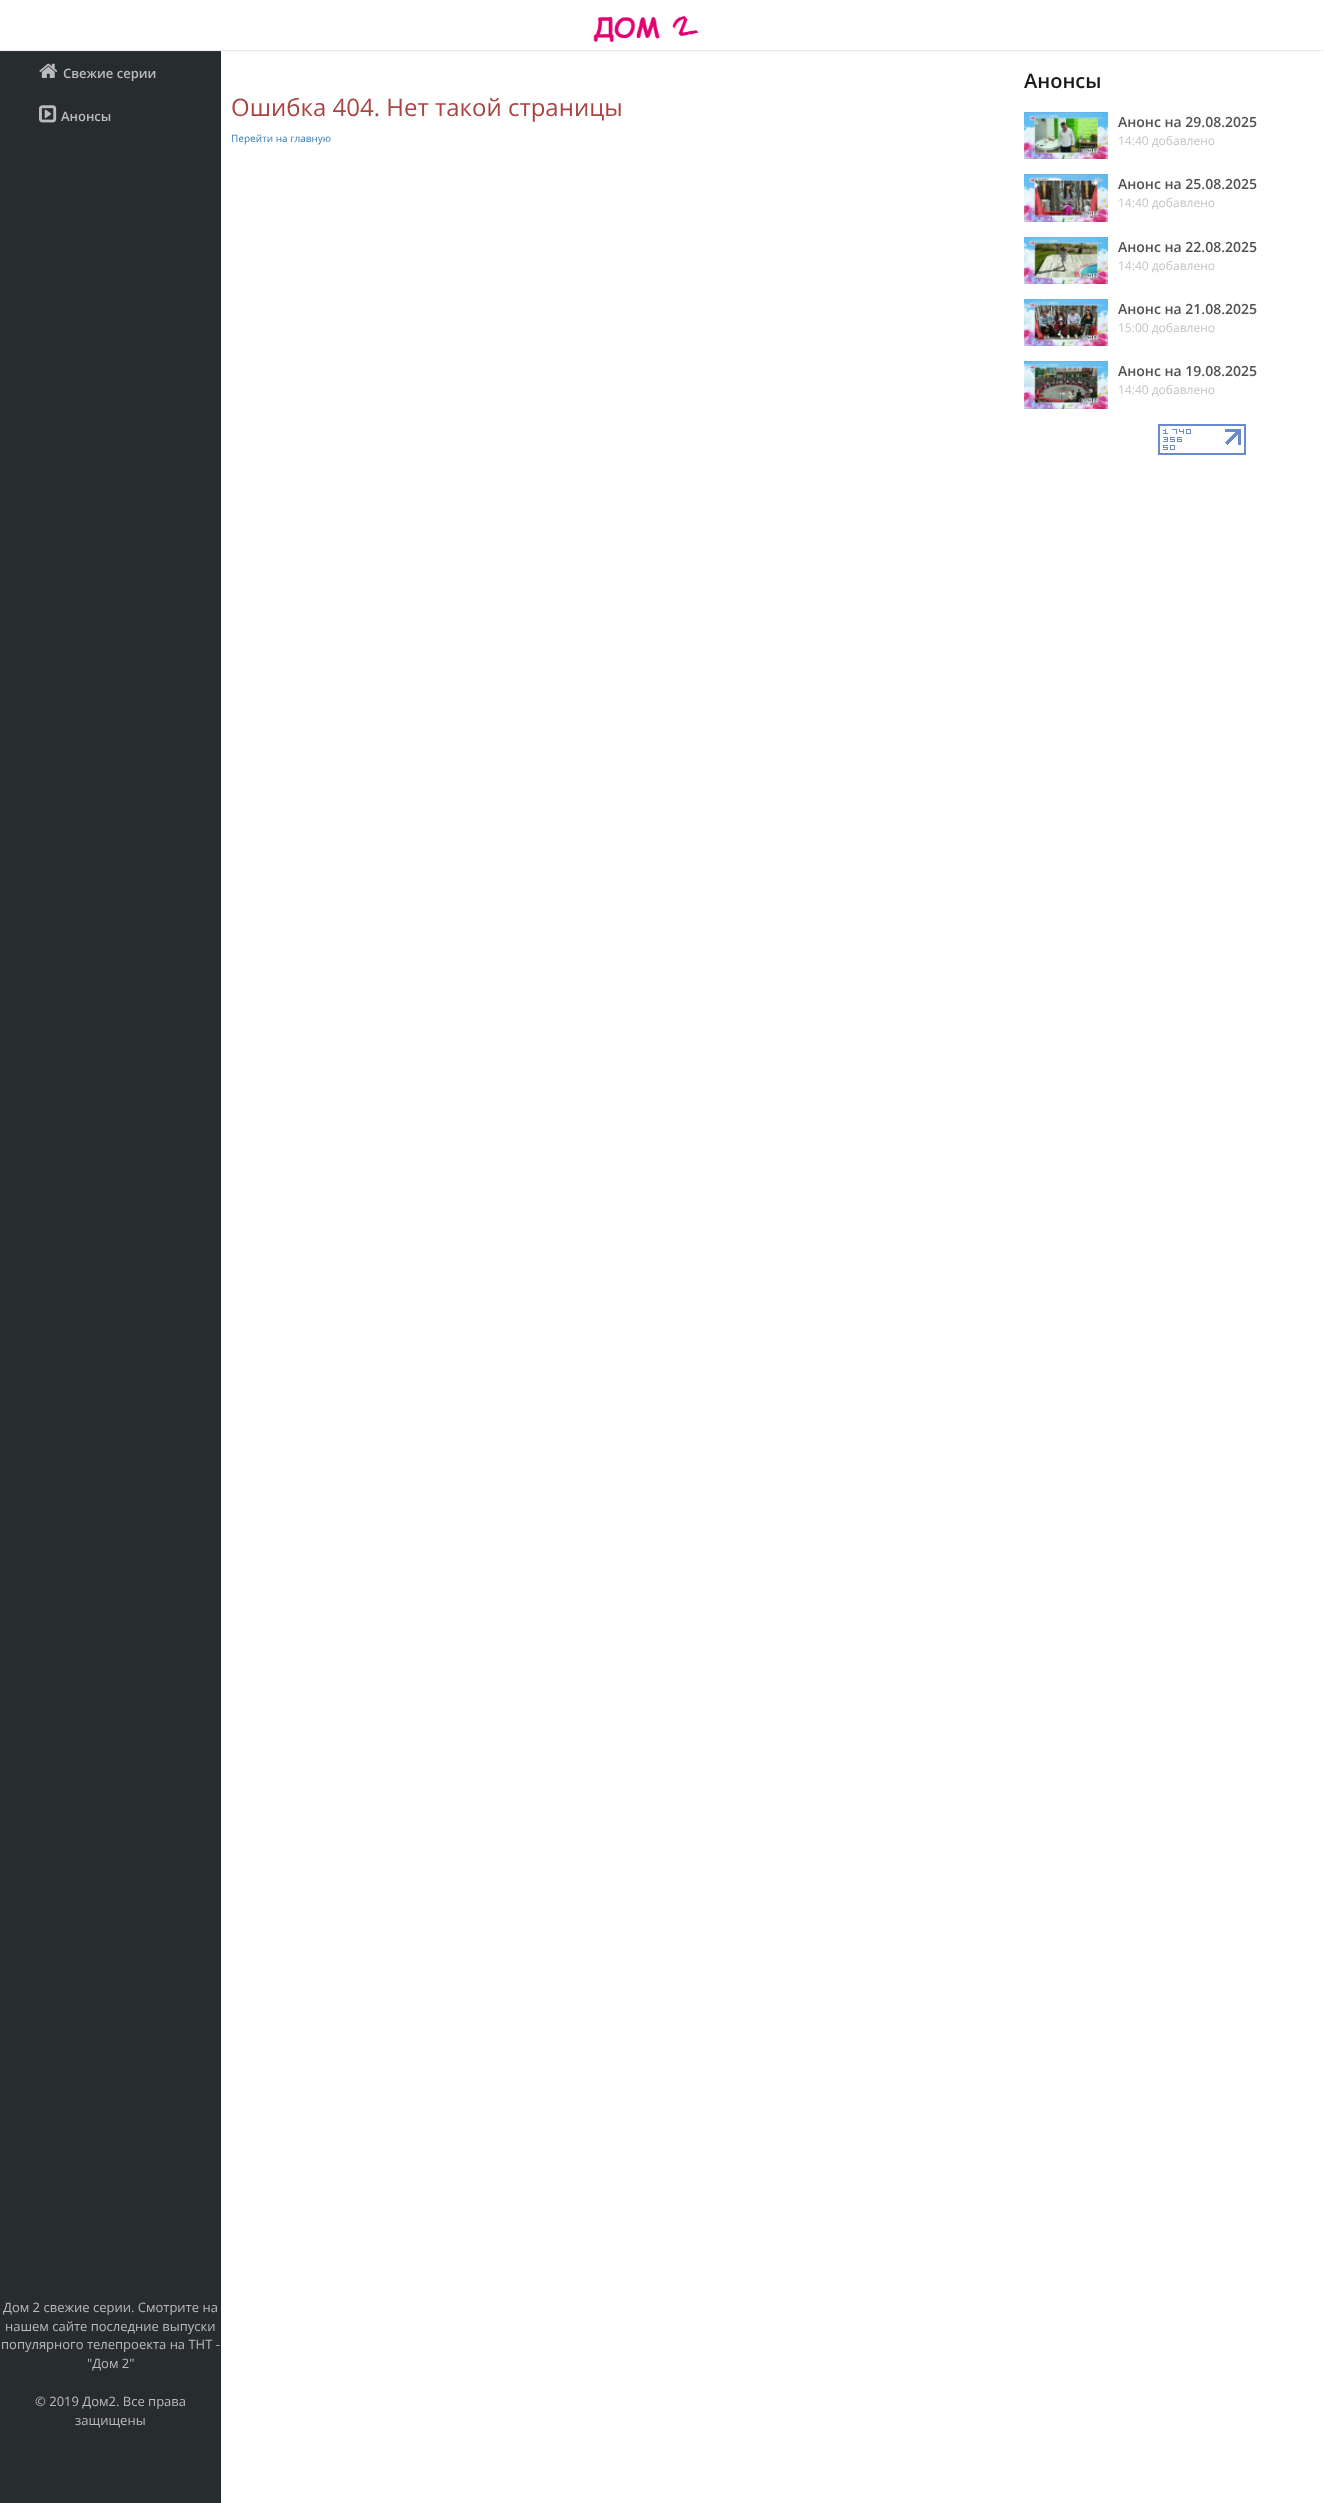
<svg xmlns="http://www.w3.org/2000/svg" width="1324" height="2503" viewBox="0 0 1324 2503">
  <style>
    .t1 { font: 600 13px Open Sans; fill: #bbb; }
    .t2 { font: 13px Open Sans; fill: #bbb; }
    .t3 { font: 24px Open Sans; fill: #a94442; }
    .t4 { font: 10px Open Sans; fill: #337ab7; }
    .t5 { font: 600 20px Open Sans; fill: #181818; }
    .t6 { font: 600 14px Open Sans; fill: #525254; }
    .t7 { font: 12px Open Sans; fill: #c3c3c3; }
  </style>
  <defs>
    <clipPath id="clip1"><rect x="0" y="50" width="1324" height="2"/></clipPath>
  </defs>
  <rect width="100%" height="100%" fill="#fff"/>
  <rect x="0" y="51" width="221" height="2452" fill="#272c2e"/>
  <g clip-path="url(#clip1)">
    <rect x="0" y="0" width="1324" height="50" fill="#c1c1c1" filter="blur(1px)"/>
  </g>
  <image x="593" y="16" width="106" height="26" href="images/1.png"/>
  <image x="39" y="63" width="19" height="15" href="images/2.png"/>
  <text x="63" y="78" class="t1">Свежие серии</text>
  <image x="39" y="105" width="18" height="18" href="images/3.png"/>
  <text x="61" y="121" class="t1">Анонсы</text>
  <text x="3" y="2312" class="t2">Дом 2 свежие серии. Смотрите на</text>
  <text x="5" y="2331" class="t2">нашем сайте последние выпуски</text>
  <text x="1" y="2349" class="t2">популярного телепроекта на ТНТ -</text>
  <text x="87" y="2368" class="t2">"Дом 2"</text>
  <text x="35" y="2406" class="t2">© 2019 Дом2. Все права</text>
  <text x="75" y="2425" class="t2">защищены</text>
  <text x="231" y="116" class="t3">Ошибка 404. Нет такой страницы</text>
  <text x="231" y="142" class="t4">Перейти на главную</text>
  <text x="1024" y="88" class="t5">Анонсы</text>
  <image x="1024" y="112" width="84" height="47" href="images/4.png"/>
  <text x="1118" y="127" class="t6">Анонс на 29.08.2025</text>
  <text x="1118" y="145" class="t7">14:40 добавлено</text>
  <image x="1024" y="174" width="84" height="48" href="images/5.png"/>
  <text x="1118" y="189" class="t6">Анонс на 25.08.2025</text>
  <text x="1118" y="207" class="t7">14:40 добавлено</text>
  <image x="1024" y="237" width="84" height="47" href="images/6.png"/>
  <text x="1118" y="252" class="t6">Анонс на 22.08.2025</text>
  <text x="1118" y="270" class="t7">14:40 добавлено</text>
  <image x="1024" y="299" width="84" height="47" href="images/7.png"/>
  <text x="1118" y="314" class="t6">Анонс на 21.08.2025</text>
  <text x="1118" y="332" class="t7">15:00 добавлено</text>
  <image x="1024" y="361" width="84" height="48" href="images/8.png"/>
  <text x="1118" y="376" class="t6">Анонс на 19.08.2025</text>
  <text x="1118" y="394" class="t7">14:40 добавлено</text>
  <image x="1158" y="424" width="88" height="31" href="images/9.png"/>
</svg>
